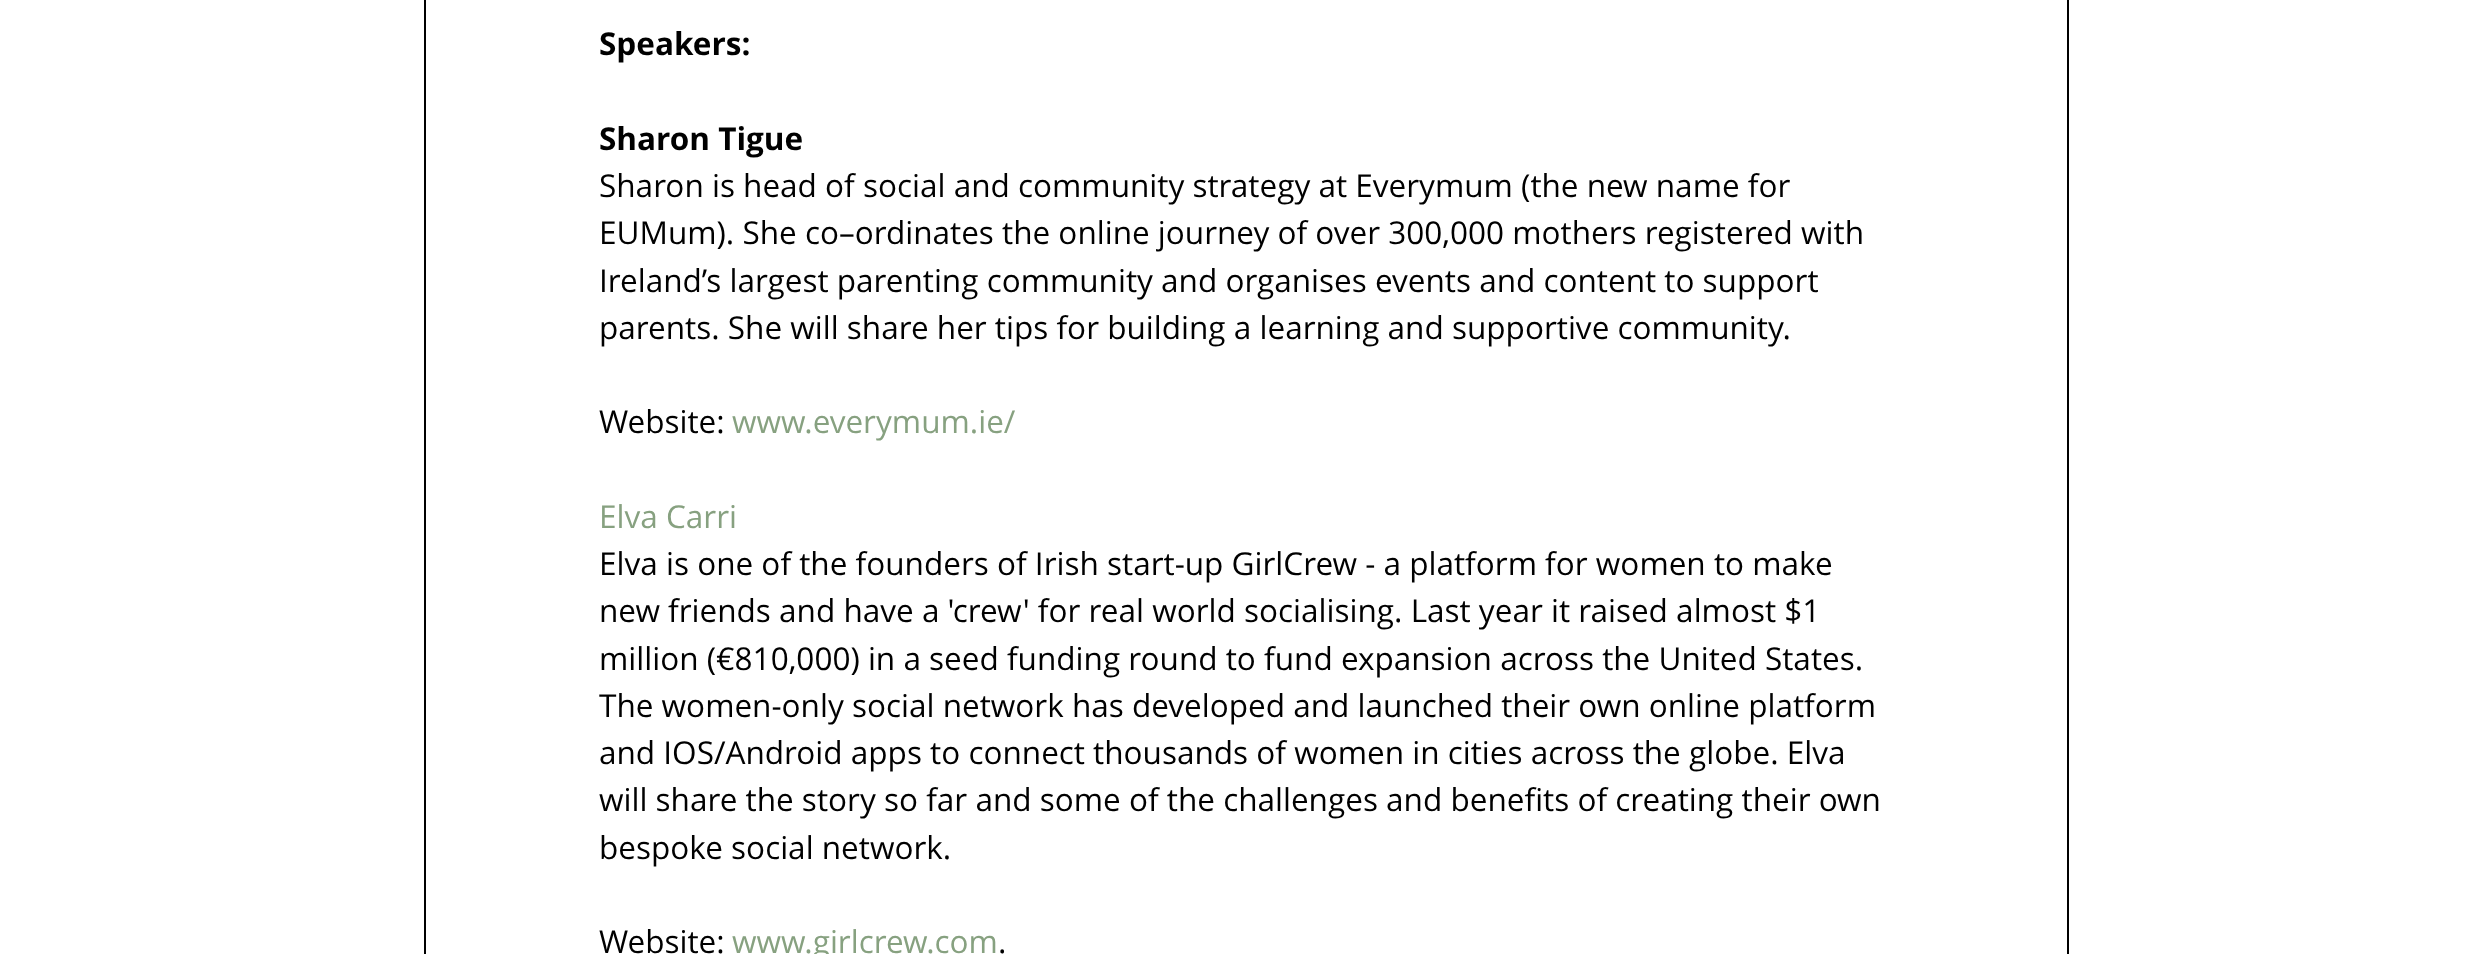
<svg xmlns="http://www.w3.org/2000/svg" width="2491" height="954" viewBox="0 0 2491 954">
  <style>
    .t1 { font: bold 31.5px Open Sans; fill: #000; }
    .t2 { font: 31.5px Open Sans; fill: #000; }
    .t3 { font: 31.5px Open Sans; fill: #87a180; }
  </style>
  <rect width="100%" height="100%" fill="#fff"/>
  <rect x="425" y="-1" width="1643" height="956" fill="none" stroke="#000" stroke-width="2"/>
  <text x="599" y="55" class="t1">Speakers:</text>
  <text x="599" y="150" class="t1">Sharon Tigue</text>
  <text x="599" y="197" class="t2">Sharon is head of social and community strategy at Everymum (the new name for</text>
  <text x="599" y="244" class="t2">EUMum). She co–ordinates the online journey of over 300,000 mothers registered with</text>
  <text x="599" y="292" class="t2">Ireland’s largest parenting community and organises events and content to support</text>
  <text x="599" y="339" class="t2">parents. She will share her tips for building a learning and supportive community.</text>
  <text x="599" y="433" class="t2">Website:</text>
  <text x="732" y="433" class="t3">www.everymum.ie/</text>
  <text x="599" y="528" class="t3">Elva Carri</text>
  <text x="599" y="575" class="t2">Elva is one of the founders of Irish start-up GirlCrew - a platform for women to make</text>
  <text x="599" y="622" class="t2">new friends and have a 'crew' for real world socialising. Last year it raised almost $1</text>
  <text x="599" y="670" class="t2">million (€810,000) in a seed funding round to fund expansion across the United States.</text>
  <text x="599" y="717" class="t2">The women-only social network has developed and launched their own online platform</text>
  <text x="599" y="764" class="t2">and IOS/Android apps to connect thousands of women in cities across the globe. Elva</text>
  <text x="599" y="811" class="t2">will share the story so far and some of the challenges and benefits of creating their own</text>
  <text x="599" y="859" class="t2">bespoke social network.</text>
  <text x="599" y="953" class="t2">Website:</text>
  <text x="732" y="953" class="t3">www.girlcrew.com</text>
  <text x="998" y="953" class="t2">.</text>
</svg>
